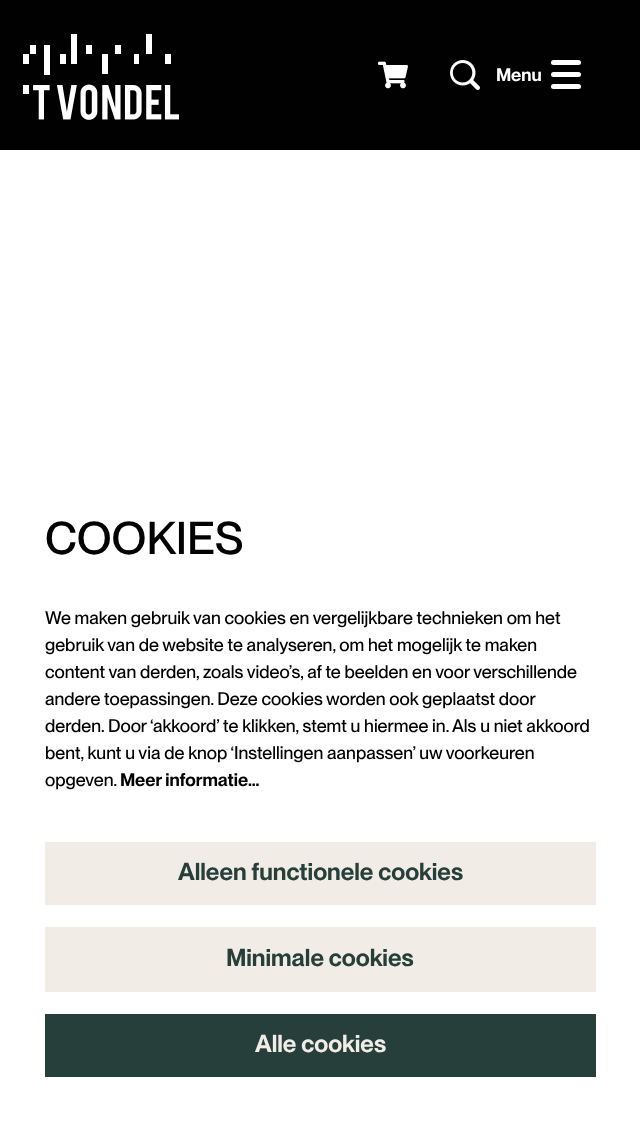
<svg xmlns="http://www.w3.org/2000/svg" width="640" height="1122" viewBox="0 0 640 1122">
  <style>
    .t1 { font: 600 18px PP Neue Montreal; fill: #fff; }
    .t2 { font: 500 45px PP Neue Montreal; fill: #010101; }
    .t3 { font: 500 18px PP Neue Montreal; fill: #010101; }
    .t4 { font: 600 18px PP Neue Montreal; fill: #010101; }
    .t5 { font: 600 24px PP Neue Montreal; fill: #263f3b; }
    .t6 { font: 600 24px PP Neue Montreal; fill: #f2ece6; }
  </style>
  <rect width="100%" height="100%" fill="#fff"/>
  <rect x="0" y="0" width="640" height="150" fill="#010101"/>
  <image x="23" y="34" width="156" height="86" href="images/1.png"/>
  <image x="378" y="61" width="30" height="28" href="images/2.png"/>
  <image x="450" y="60" width="30" height="30" href="images/3.png"/>
  <text x="496" y="81" class="t1">Menu</text>
  <rect x="551" y="60" width="30" height="5" rx="2.5" fill="#fff"/>
  <rect x="551" y="72" width="30" height="5" rx="2.5" fill="#fff"/>
  <rect x="551" y="84" width="30" height="5" rx="2.5" fill="#fff"/>
  <text x="45" y="554" class="t2">COOKIES</text>
  <text x="45" y="624" class="t3">We maken gebruik van cookies en vergelijkbare technieken om het</text>
  <text x="45" y="651" class="t3">gebruik van de website te analyseren, om het mogelijk te maken</text>
  <text x="45" y="678" class="t3">content van derden, zoals video’s, af te beelden en voor verschillende</text>
  <text x="45" y="705" class="t3">andere toepassingen. Deze cookies worden ook geplaatst door</text>
  <text x="45" y="732" class="t3">derden. Door ‘akkoord’ te klikken, stemt u hiermee in. Als u niet akkoord</text>
  <text x="45" y="759" class="t3">bent, kunt u via de knop ‘Instellingen aanpassen’ uw voorkeuren</text>
  <text x="45" y="786" class="t3">opgeven.</text>
  <text x="120" y="786" class="t4">Meer informatie…</text>
  <rect x="45" y="842" width="551" height="63" fill="#f2ece6"/>
  <text x="178" y="880" class="t5">Alleen functionele cookies</text>
  <rect x="45" y="927" width="551" height="65" fill="#f2ece6"/>
  <text x="226" y="966" class="t5">Minimale cookies</text>
  <rect x="45" y="1014" width="551" height="63" fill="#263f3b"/>
  <text x="255" y="1052" class="t6">Alle cookies</text>
</svg>
